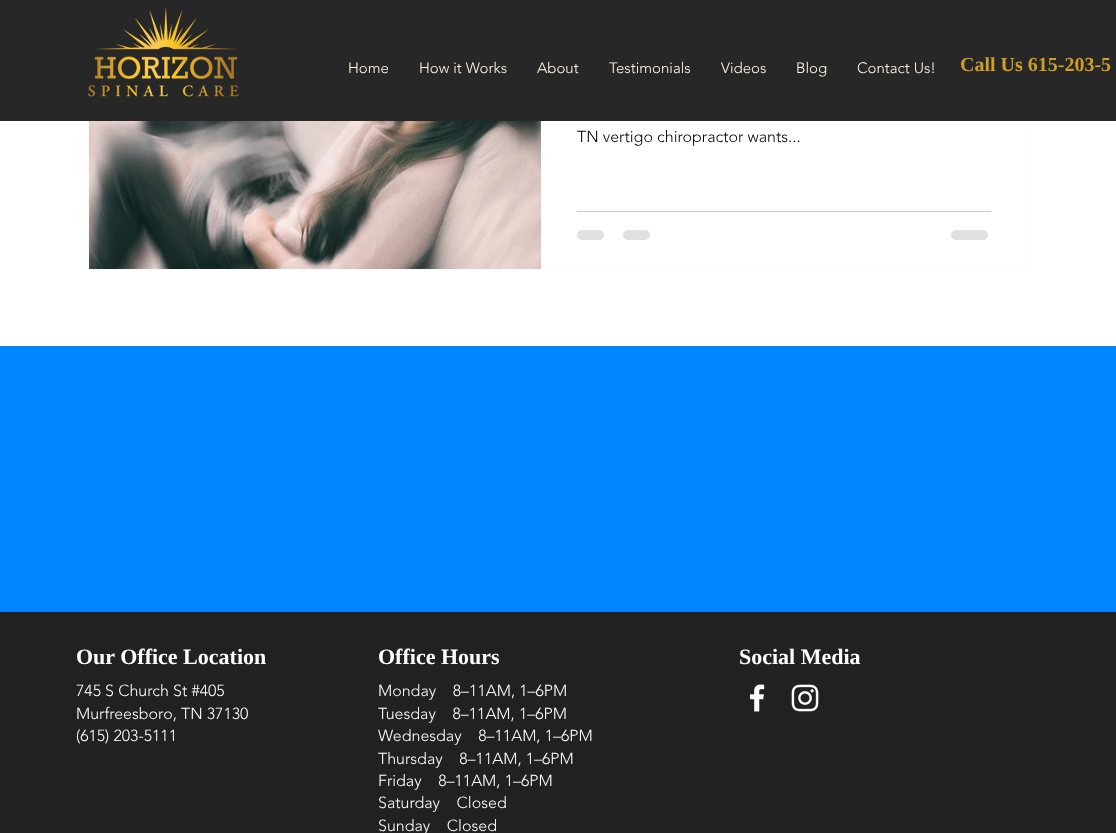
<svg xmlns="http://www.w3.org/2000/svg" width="1116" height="833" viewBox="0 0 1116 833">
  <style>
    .t1 { font: 300 15px 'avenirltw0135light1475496'; fill: #fff7e6; }
    .t2 { font: bold 20px Liberation Serif; fill: #cd9f26; }
    .t3 { font: 300 16px 'avenirltw0135light1475496'; fill: #000; }
    .t4 { font: bold 22px Liberation Serif; fill: #fff; }
    .t5 { font: 300 16px 'avenirltw0135light1475496'; fill: #fff; }
  </style>
  <rect width="100%" height="100%" fill="#fff"/>
  <rect x="88.5" y="-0.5" width="939" height="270" fill="none" stroke="#fbfbfb"/>
  <rect x="0" y="0" width="1116" height="121" fill="#282727"/>
  <text x="348" y="73" class="t1">Home</text>
  <text x="419" y="73" class="t1">How it Works</text>
  <text x="537" y="73" class="t1">About</text>
  <text x="609" y="73" class="t1">Testimonials</text>
  <text x="721" y="73" class="t1">Videos</text>
  <text x="796" y="73" class="t1">Blog</text>
  <text x="857" y="73" class="t1">Contact Us!</text>
  <image x="88" y="8" width="151" height="89" href="images/1.png"/>
  <text x="960" y="71" class="t2">Call Us 615-203-5</text>
  <image x="89" y="121" width="452" height="148" href="images/2.png"/>
  <text x="577" y="142" class="t3">TN vertigo chiropractor wants...</text>
  <rect x="577" y="211" width="414" height="1" fill="#ccc"/>
  <rect x="577" y="230" width="27" height="10" rx="5" fill="#e0e0e0"/>
  <rect x="623" y="230" width="27" height="10" rx="5" fill="#e0e0e0"/>
  <rect x="951" y="230" width="37" height="10" rx="5" fill="#e0e0e0"/>
  <rect x="0" y="346" width="1116" height="266" fill="#0084ff"/>
  <rect x="0" y="612" width="1116" height="221" fill="#212121"/>
  <text x="76" y="664" class="t4">Our Office Location</text>
  <text x="378" y="664" class="t4">Office Hours</text>
  <text x="739" y="664" class="t4">Social Media</text>
  <text x="76" y="696" class="t5">745 S Church St #405</text>
  <text x="76" y="719" class="t5">Murfreesboro, TN 37130</text>
  <text x="76" y="741" class="t5">(615) 203-5111</text>
  <text x="378" y="696" class="t5" xml:space="preserve">Monday    8–11AM, 1–6PM</text>
  <text x="378" y="719" class="t5" xml:space="preserve">Tuesday    8–11AM, 1–6PM</text>
  <text x="378" y="741" class="t5" xml:space="preserve">Wednesday    8–11AM, 1–6PM</text>
  <text x="378" y="764" class="t5" xml:space="preserve">Thursday    8–11AM, 1–6PM</text>
  <text x="378" y="786" class="t5" xml:space="preserve">Friday    8–11AM, 1–6PM</text>
  <text x="378" y="808" class="t5" xml:space="preserve">Saturday    Closed</text>
  <text x="378" y="831" class="t5" xml:space="preserve">Sunday    Closed</text>
  <image x="749" y="684" width="16" height="28" href="images/3.png"/>
  <image x="791" y="684" width="28" height="28" href="images/4.png"/>
</svg>
